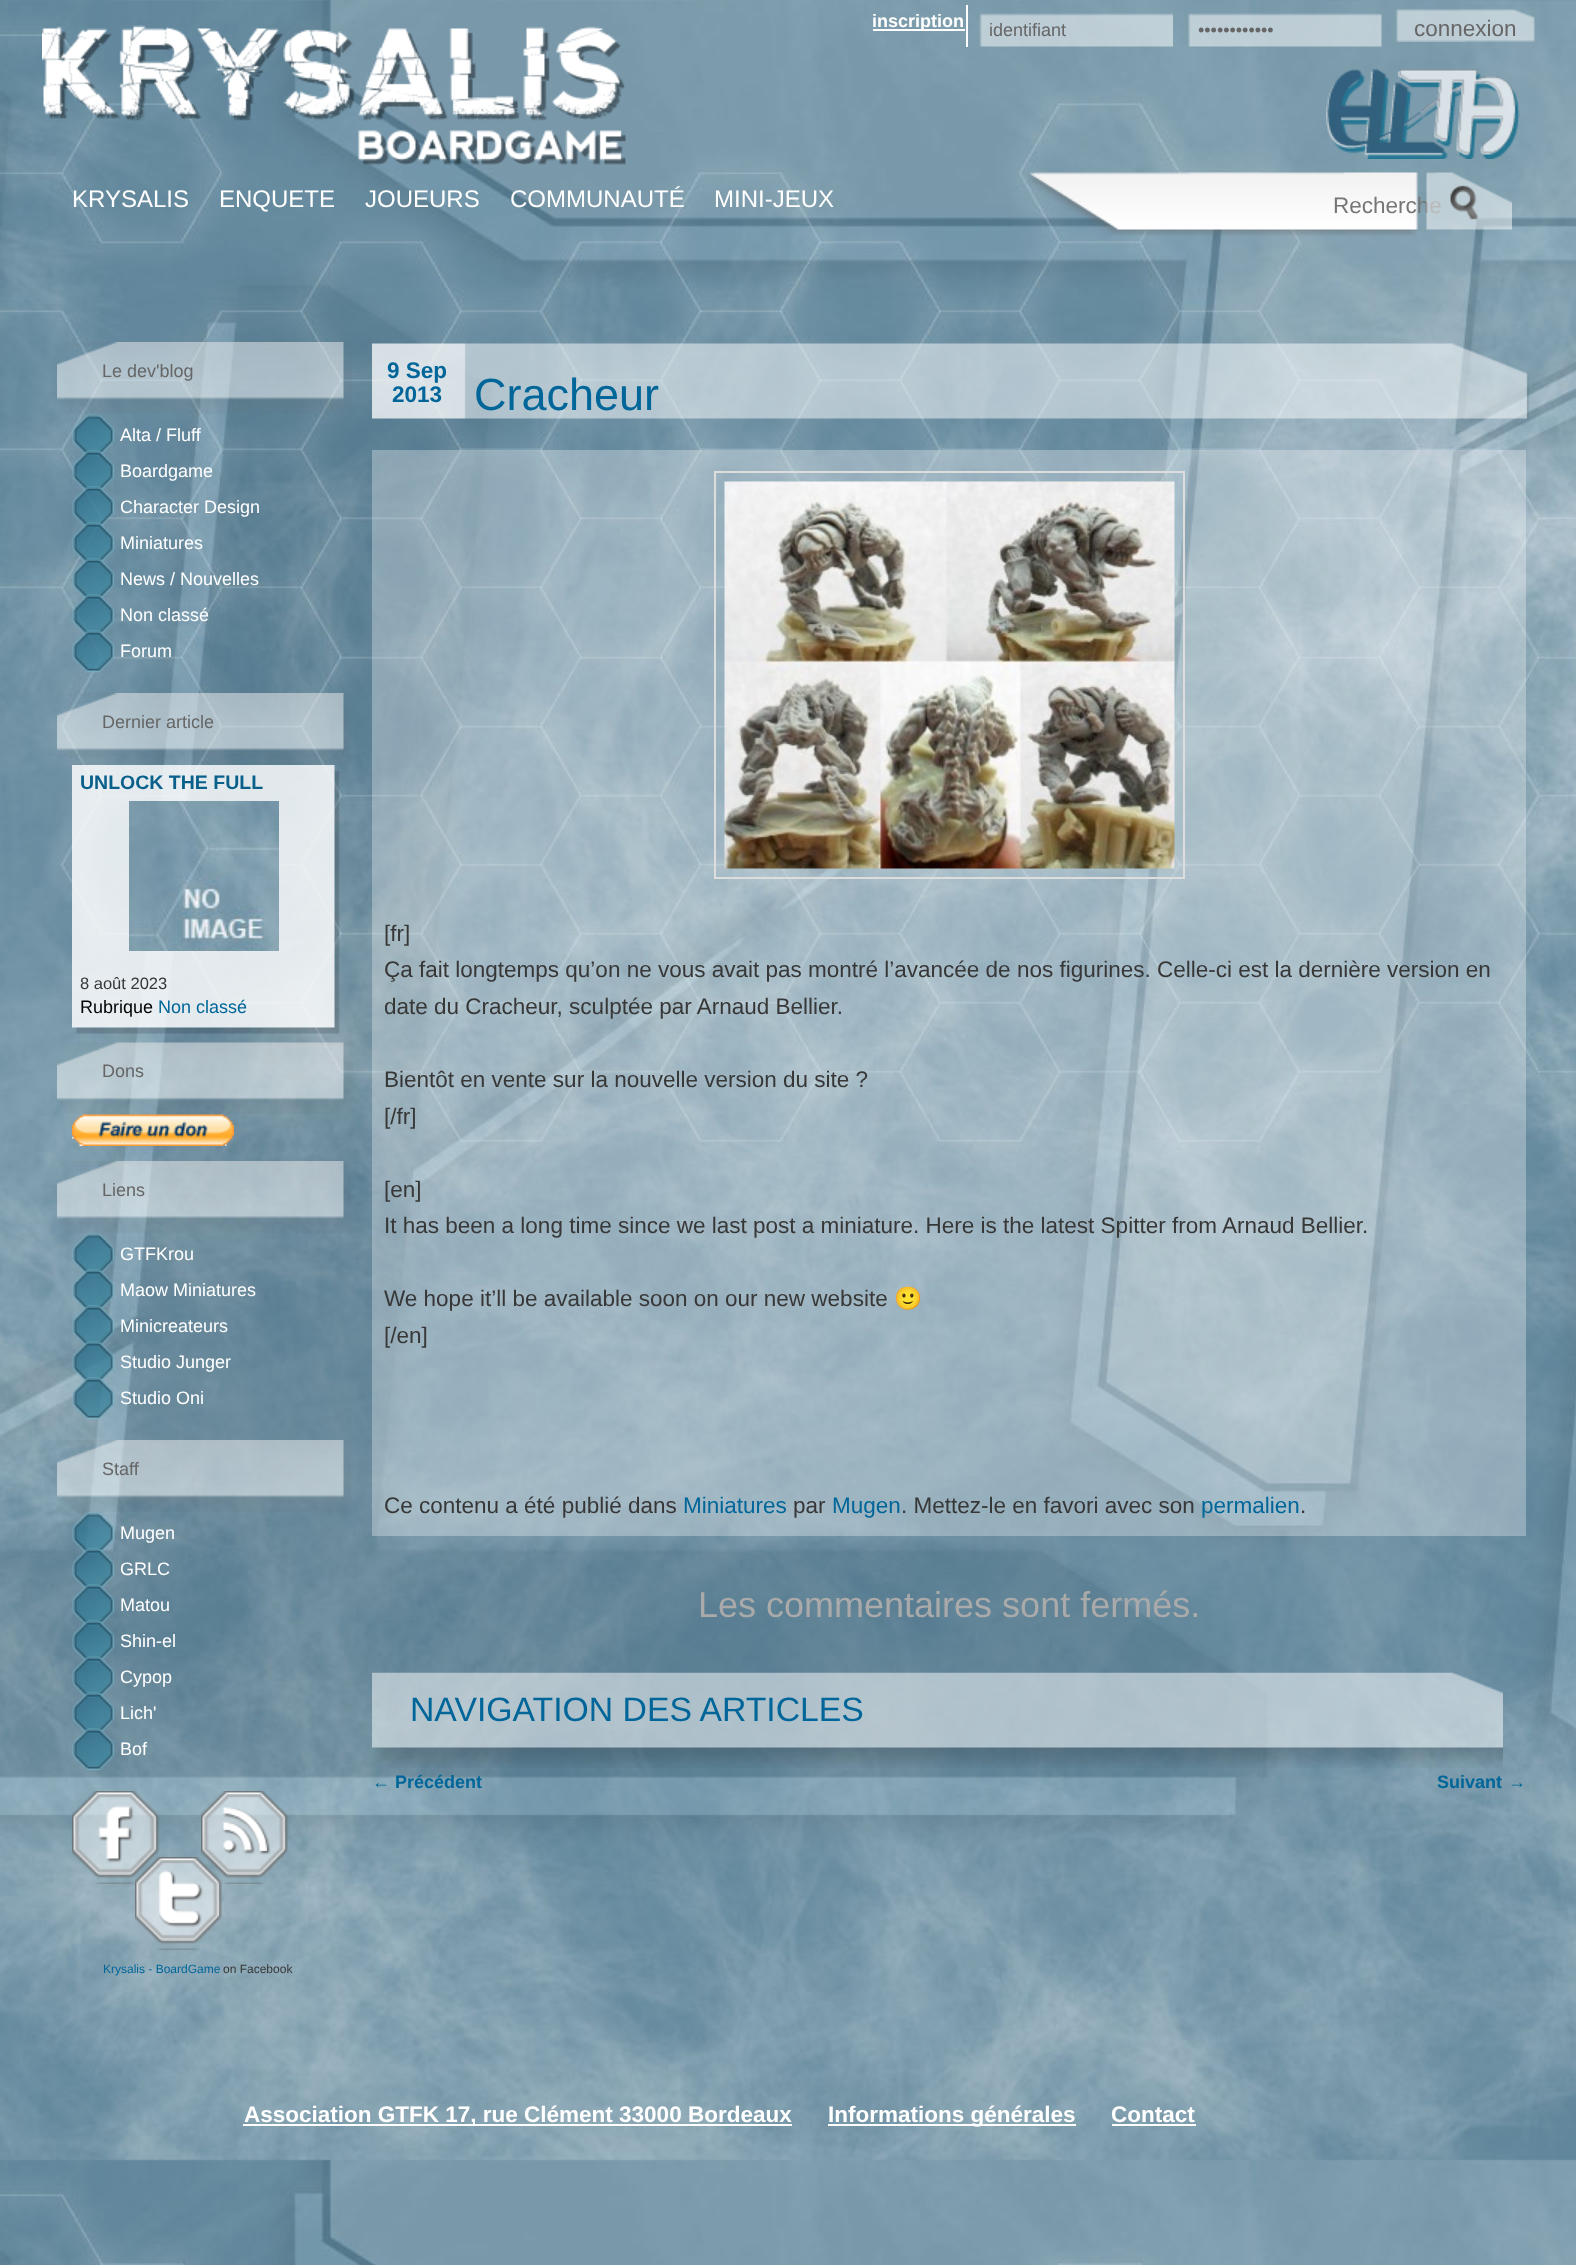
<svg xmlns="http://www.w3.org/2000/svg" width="1576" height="2265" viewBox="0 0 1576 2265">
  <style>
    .t1 { font: bold 18px Liberation Sans; fill: #fff; }
    .t2 { font: 18px Liberation Sans; fill: #666; }
    .t3 { font: 22.5px Liberation Sans; fill: #666; }
    .t4 { font: 24px Liberation Sans; fill: #fff; }
    .t5 { font: 22.5px Liberation Sans; fill: #757575; }
    .t6 { font: 18px Liberation Sans; fill: #fff; }
    .t7 { font: bold 19.5px Liberation Sans; fill: #09608a; }
    .t8 { font: 16.5px Liberation Sans; fill: #373737; }
    .t9 { font: 18px Liberation Sans; fill: #000; }
    .t10 { font: 18px Liberation Sans; fill: #069; }
    .t11 { font: 12px Liberation Sans; fill: #069; }
    .t12 { font: 12px Liberation Sans; fill: #373737; }
    .t13 { font: bold 22.5px Liberation Sans; fill: #069; }
    .t14 { font: 45px Liberation Sans; fill: #069; }
    .t15 { font: 22.5px Liberation Sans; fill: #373737; }
    .t16 { font: 22.5px Noto Color Emoji; fill: #373737; }
    .t17 { font: 22.5px Liberation Sans; fill: #069; }
    .t18 { font: 36px Liberation Sans; fill: #aaa; }
    .t19 { font: 33.75px Liberation Sans; fill: #069; }
    .t20 { font: bold 18px Liberation Sans; fill: #069; }
    .t21 { font: bold 22.5px Liberation Sans; fill: #fff; }
  </style>
  <rect width="100%" height="100%" fill="#fff"/>
  <image x="0" y="0" width="1576" height="2265" href="images/1.png"/>
  <image x="42" y="25" width="584" height="140" href="images/2.png"/>
  <rect x="873" y="29" width="92" height="2" fill="#fff"/>
  <text x="872" y="27" class="t1">inscription</text>
  <rect x="966" y="5" width="2" height="42" fill="#fff"/>
  <image x="979" y="13" width="194" height="34" href="images/3.png"/>
  <text x="989" y="36" class="t2">identifiant</text>
  <image x="1188" y="13" width="194" height="34" href="images/4.png"/>
  <text x="1198" y="36" class="t2">••••••••••••</text>
  <image x="1396" y="9" width="139" height="33" href="images/5.png"/>
  <text x="1414" y="36" class="t3">connexion</text>
  <image x="1326" y="69" width="194" height="90" href="images/6.png"/>
  <text x="72" y="207" class="t4">KRYSALIS</text>
  <text x="219" y="207" class="t4">ENQUETE</text>
  <text x="365" y="207" class="t4">JOUEURS</text>
  <text x="510" y="207" class="t4">COMMUNAUTÉ</text>
  <text x="714" y="207" class="t4">MINI-JEUX</text>
  <image x="1028" y="172" width="390" height="64" href="images/7.png"/>
  <text x="1333" y="213" class="t5">Recherche</text>
  <image x="1426" y="172" width="86" height="58" href="images/8.png"/>
  <image x="57" y="342" width="295" height="72" href="images/9.png"/>
  <text x="102" y="377" class="t2">Le dev'blog</text>
  <image x="72" y="414" width="43" height="43" href="images/10.png"/>
  <text x="120" y="441" class="t6">Alta / Fluff</text>
  <image x="72" y="450" width="43" height="43" href="images/11.png"/>
  <text x="120" y="477" class="t6">Boardgame</text>
  <image x="72" y="486" width="43" height="43" href="images/12.png"/>
  <text x="120" y="513" class="t6">Character Design</text>
  <image x="72" y="522" width="43" height="43" href="images/13.png"/>
  <text x="120" y="549" class="t6">Miniatures</text>
  <image x="72" y="558" width="43" height="43" href="images/14.png"/>
  <text x="120" y="585" class="t6">News / Nouvelles</text>
  <image x="72" y="594" width="43" height="43" href="images/15.png"/>
  <text x="120" y="621" class="t6">Non classé</text>
  <image x="72" y="630" width="43" height="43" href="images/16.png"/>
  <text x="120" y="657" class="t6">Forum</text>
  <image x="57" y="693" width="294" height="72" href="images/17.png"/>
  <text x="102" y="728" class="t2">Dernier article</text>
  <image x="72" y="765" width="268" height="269" href="images/18.png"/>
  <text x="80" y="789" class="t7">UNLOCK THE FULL</text>
  <image x="129" y="801" width="150" height="150" href="images/19.png"/>
  <text x="80" y="989" class="t8">8 août 2023</text>
  <text x="80" y="1013" class="t9">Rubrique</text>
  <text x="158" y="1013" class="t10">Non classé</text>
  <image x="57" y="1042" width="296" height="72" href="images/20.png"/>
  <text x="102" y="1077" class="t2">Dons</text>
  <image x="72" y="1114" width="162" height="32" href="images/21.png"/>
  <image x="57" y="1161" width="294" height="72" href="images/22.png"/>
  <text x="102" y="1196" class="t2">Liens</text>
  <image x="72" y="1233" width="43" height="43" href="images/23.png"/>
  <text x="120" y="1260" class="t6">GTFKrou</text>
  <image x="72" y="1269" width="42" height="43" href="images/24.png"/>
  <text x="120" y="1296" class="t6">Maow Miniatures</text>
  <image x="72" y="1305" width="43" height="43" href="images/25.png"/>
  <text x="120" y="1332" class="t6">Minicreateurs</text>
  <image x="72" y="1341" width="42" height="43" href="images/26.png"/>
  <text x="120" y="1368" class="t6">Studio Junger</text>
  <image x="72" y="1377" width="42" height="43" href="images/27.png"/>
  <text x="120" y="1404" class="t6">Studio Oni</text>
  <image x="57" y="1440" width="294" height="72" href="images/28.png"/>
  <text x="102" y="1475" class="t2">Staff</text>
  <image x="72" y="1512" width="42" height="43" href="images/29.png"/>
  <text x="120" y="1539" class="t6">Mugen</text>
  <image x="72" y="1548" width="43" height="43" href="images/30.png"/>
  <text x="120" y="1575" class="t6">GRLC</text>
  <image x="72" y="1584" width="43" height="43" href="images/31.png"/>
  <text x="120" y="1611" class="t6">Matou</text>
  <image x="72" y="1620" width="43" height="43" href="images/32.png"/>
  <text x="120" y="1647" class="t6">Shin-el</text>
  <image x="72" y="1656" width="43" height="43" href="images/33.png"/>
  <text x="120" y="1683" class="t6">Cypop</text>
  <image x="72" y="1692" width="43" height="43" href="images/34.png"/>
  <text x="120" y="1719" class="t6">Lich'</text>
  <image x="72" y="1728" width="43" height="43" href="images/35.png"/>
  <text x="120" y="1755" class="t6">Bof</text>
  <image x="72" y="1791" width="88" height="93" href="images/36.png"/>
  <image x="135" y="1857" width="88" height="93" href="images/38.png"/>
  <image x="201" y="1791" width="88" height="93" href="images/37.png"/>
  <text x="103" y="1973" class="t11">Krysalis - BoardGame</text>
  <text x="223" y="1973" class="t12">on Facebook</text>
  <image x="372" y="343" width="1157" height="76" href="images/39.png"/>
  <text x="387" y="378" class="t13">9 Sep</text>
  <text x="392" y="402" class="t13">2013</text>
  <text x="474" y="410" class="t14">Cracheur</text>
  <rect x="372" y="450" width="1154" height="1026" fill="#ffffff4d"/>
  <rect x="715" y="472" width="469" height="406" fill="none" stroke="#ddd" stroke-width="2"/>
  <image x="724" y="481" width="451" height="388" href="images/40.png"/>
  <text x="384" y="941" class="t15">[fr]</text>
  <text x="384" y="977" class="t15">Ça fait longtemps qu’on ne vous avait pas montré l’avancée de nos figurines. Celle-ci est la dernière version en</text>
  <text x="384" y="1014" class="t15">date du Cracheur, sculptée par Arnaud Bellier.</text>
  <text x="384" y="1087" class="t15">Bientôt en vente sur la nouvelle version du site ?</text>
  <text x="384" y="1124" class="t15">[/fr]</text>
  <text x="384" y="1197" class="t15">[en]</text>
  <text x="384" y="1233" class="t15">It has been a long time since we last post a miniature. Here is the latest Spitter from Arnaud Bellier.</text>
  <text x="384" y="1306" class="t15">We hope it’ll be available soon on our new website</text>
  <text x="894" y="1306" class="t16">🙂</text>
  <text x="384" y="1343" class="t15">[/en]</text>
  <rect x="372" y="1476" width="1154" height="60" fill="#ffffff4d"/>
  <text x="384" y="1513" class="t15">Ce contenu a été publié dans</text>
  <text x="683" y="1513" class="t17">Miniatures</text>
  <text x="793" y="1513" class="t15">par</text>
  <text x="832" y="1513" class="t17">Mugen</text>
  <text x="901" y="1513" class="t15">. Mettez-le en favori avec son</text>
  <text x="1201" y="1513" class="t17">permalien</text>
  <text x="1300" y="1513" class="t15">.</text>
  <text x="698" y="1617" class="t18">Les commentaires sont fermés.</text>
  <image x="372" y="1672" width="1131" height="96" href="images/41.png"/>
  <text x="410" y="1721" class="t19">NAVIGATION DES ARTICLES</text>
  <text x="372" y="1788" class="t10">←</text>
  <text x="395" y="1788" class="t20">Précédent</text>
  <text x="1437" y="1788" class="t20">Suivant</text>
  <text x="1508" y="1788" class="t10">→</text>
  <rect x="243" y="2124" width="549" height="2" fill="#fff"/>
  <text x="244" y="2122" class="t21">Association GTFK 17, rue Clément 33000 Bordeaux</text>
  <rect x="828" y="2124" width="248" height="2" fill="#fff"/>
  <text x="828" y="2122" class="t21">Informations générales</text>
  <text x="1111" y="2122" class="t21">Contact</text>
  <rect x="1112" y="2124" width="84" height="2" fill="#fff"/>
</svg>
